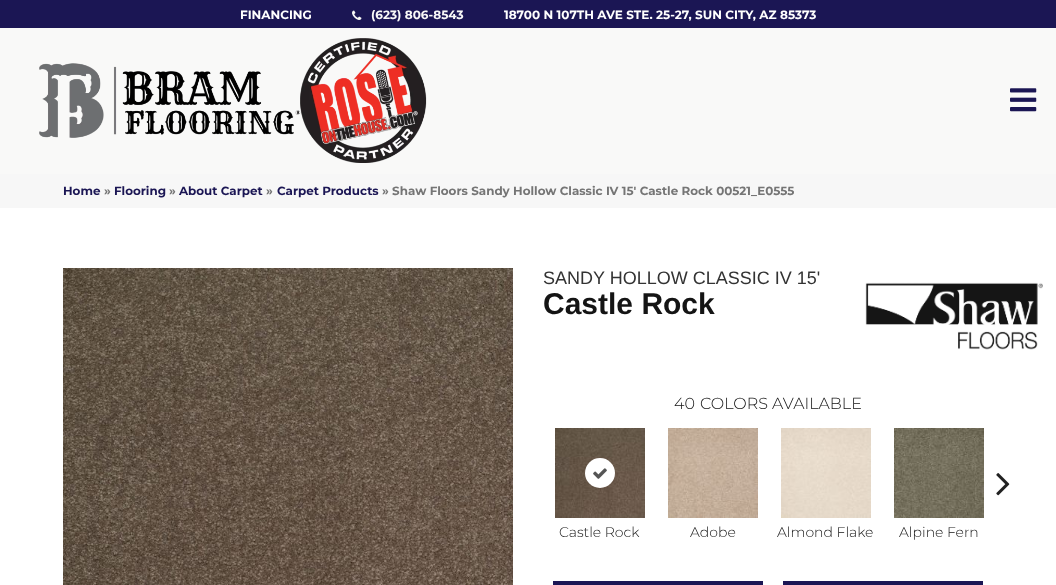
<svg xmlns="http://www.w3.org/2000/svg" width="1056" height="585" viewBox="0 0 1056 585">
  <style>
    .t1 { font: bold 12px Montserrat; fill: #fff; }
    .t2 { font: bold 12px Montserrat; fill: #f9f9f8; }
    .t3 { font: bold 11.9px Montserrat; fill: #1b1654; }
    .t4 { font: bold 11.9px Montserrat; fill: #757575; }
    .t5 { font: 18px Liberation Sans; fill: #333; }
    .t6 { font: bold 30px Liberation Sans; fill: #141414; }
    .t7 { font: 300 16px Montserrat; fill: #141414; }
    .t8 { font: 300 14px Montserrat; fill: #141414; }
  </style>
  <rect width="100%" height="100%" fill="#fff"/>
  <rect x="0" y="0" width="1056" height="28" fill="#1b1654"/>
  <text x="240" y="19" class="t1">FINANCING</text>
  <image x="352" y="10" width="10" height="10" href="images/1.png"/>
  <text x="371" y="19" class="t2">(623) 806-8543</text>
  <text x="504" y="19" class="t1">18700 N 107TH AVE STE. 25-27, SUN CITY, AZ 85373</text>
  <rect x="0" y="28" width="1056" height="146" fill="#f9f9f8"/>
  <image x="39" y="38" width="388" height="125" href="images/2.png"/>
  <image x="1010" y="88" width="27" height="24" href="images/3.png"/>
  <rect x="0" y="174" width="1056" height="34" fill="#f7f7f7"/>
  <text x="63" y="195" class="t3">Home</text>
  <text x="104" y="195" class="t4">»</text>
  <text x="114" y="195" class="t3">Flooring</text>
  <text x="169" y="195" class="t4">»</text>
  <text x="179" y="195" class="t3">About Carpet</text>
  <text x="266" y="195" class="t4">»</text>
  <text x="277" y="195" class="t3">Carpet Products</text>
  <text x="382" y="195" class="t4">» Shaw Floors Sandy Hollow Classic IV 15′ Castle Rock 00521_E0555</text>
  <image x="63" y="268" width="450" height="317" href="images/4.png"/>
  <text x="543" y="284" class="t5">SANDY HOLLOW CLASSIC IV 15'</text>
  <text x="543" y="314" class="t6">Castle Rock</text>
  <image x="865" y="282" width="178" height="68" href="images/5.png"/>
  <text x="674" y="409" class="t7">40</text>
  <text x="700" y="409" class="t7">COLORS AVAILABLE</text>
  <image x="996" y="473" width="14" height="23" href="images/6.png"/>
  <image x="555" y="428" width="90" height="90" href="images/7.png"/>
  <circle cx="600" cy="473" r="15" fill="#fff"/>
  <image x="593" y="468" width="14" height="11" href="images/8.png"/>
  <text x="559" y="537" class="t8">Castle Rock</text>
  <image x="668" y="428" width="90" height="90" href="images/9.png"/>
  <text x="690" y="537" class="t8">Adobe</text>
  <image x="781" y="428" width="90" height="90" href="images/10.png"/>
  <text x="777" y="537" class="t8">Almond Flake</text>
  <image x="894" y="428" width="90" height="90" href="images/11.png"/>
  <text x="899" y="537" class="t8">Alpine Fern</text>
  <rect x="553" y="581" width="210" height="4" fill="#1b1654"/>
  <rect x="783" y="581" width="200" height="4" fill="#1b1654"/>
</svg>
